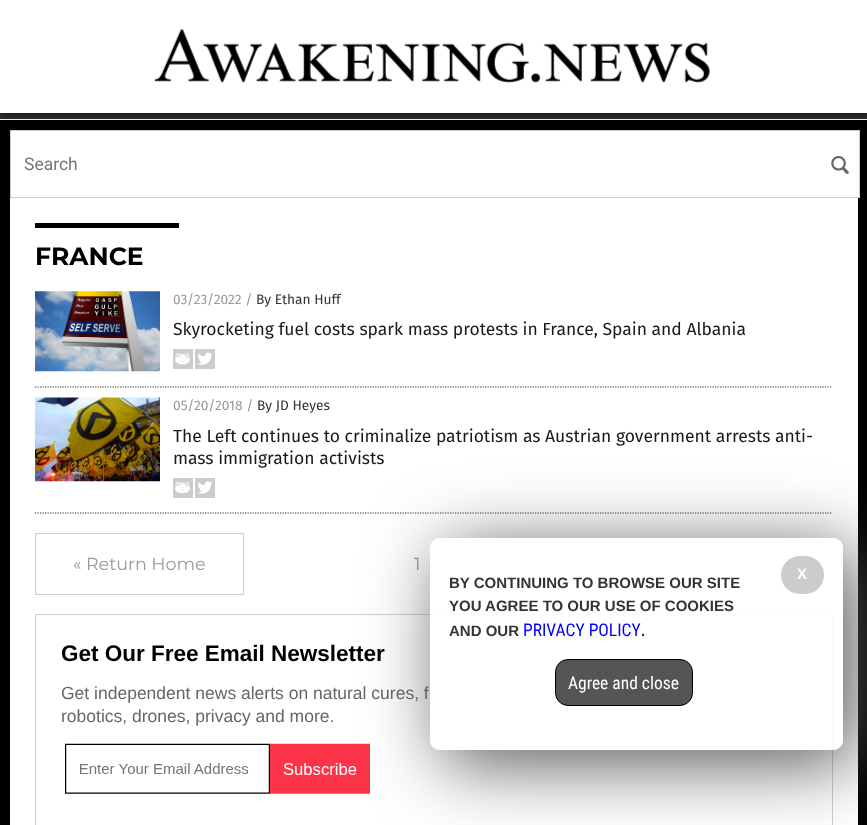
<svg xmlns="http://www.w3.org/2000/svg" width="867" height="825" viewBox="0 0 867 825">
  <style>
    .t1 { font: 17.5px Roboto; fill: #757575; }
    .t2 { font: bold 25px Montserrat; fill: #000; }
    .t3 { font: 13.75px Fira Sans; fill: #999; }
    .t4 { font: 13.75px Fira Sans; fill: #333; }
    .t5 { font: 17.5px Fira Sans; fill: #1a1a1a; }
    .t6 { font: 17.5px Montserrat; fill: #999; }
    .t7 { font: bold 22.5px Liberation Sans; fill: #000; }
    .t8 { font: 17.5px Liberation Sans; fill: #666; }
    .t9 { font: bold 15px Liberation Sans; fill: #fff; }
    .t10 { font: bold 15px Liberation Sans; fill: #333; }
    .t11 { font: 17.5px Roboto Condensed; fill: #00f; }
    .t12 { font: 17.5px Roboto Condensed; fill: #fff; }
  </style>
  <defs>
    <clipPath id="clip1"><path d="M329 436H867V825H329ZM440 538H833C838.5 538 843 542.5 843 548V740C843 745.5 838.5 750 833 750H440C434.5 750 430 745.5 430 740V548C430 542.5 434.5 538 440 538Z" clip-rule="evenodd"/></clipPath>
  </defs>
  <rect width="100%" height="100%" fill="#343434"/>
  <rect x="-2" y="-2" width="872" height="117" fill="#000000bf" filter="blur(6px)"/>
  <rect x="0" y="0" width="867" height="113" fill="#fff"/>
  <image x="154" y="28" width="556" height="55" href="images/1.png"/>
  <rect x="0" y="120" width="867" height="705" fill="#000"/>
  <rect x="0" y="119" width="867" height="1" fill="#ececec"/>
  <rect x="10.5" y="130.5" width="849" height="67" fill="#fff" stroke="#ccc"/>
  <text x="24" y="170" class="t1">Search</text>
  <image x="831" y="156" width="18" height="18" href="images/2.png"/>
  <rect x="10" y="198" width="848" height="627" fill="#fff"/>
  <rect x="35" y="223" width="144" height="5" fill="#000"/>
  <text x="35" y="265" class="t2">FRANCE</text>
  <path d="M35 387H832.5" fill="none" stroke="#343434" stroke-width="1.2" stroke-dasharray="1.25 1.25"/>
  <image x="35" y="291" width="125" height="81" href="images/3.png"/>
  <text x="173" y="304" class="t3">03/23/2022 /</text>
  <text x="256" y="304" class="t4">By Ethan Huff</text>
  <text x="173" y="335" class="t5">Skyrocketing fuel costs spark mass protests in France, Spain and Albania</text>
  <image x="173" y="349" width="20" height="20" href="images/4.png"/>
  <image x="195" y="349" width="20" height="20" href="images/5.png"/>
  <path d="M35 513H832.5" fill="none" stroke="#343434" stroke-width="1.2" stroke-dasharray="1.25 1.25"/>
  <image x="35" y="397" width="125" height="85" href="images/6.png"/>
  <text x="173" y="410" class="t3">05/20/2018 /</text>
  <text x="257" y="410" class="t4">By JD Heyes</text>
  <text x="173" y="442" class="t5">The Left continues to criminalize patriotism as Austrian government arrests anti-</text>
  <text x="173" y="464" class="t5">mass immigration activists</text>
  <image x="173" y="478" width="20" height="20" href="images/7.png"/>
  <image x="195" y="478" width="20" height="20" href="images/8.png"/>
  <rect x="35.5" y="533.5" width="208" height="61" fill="none" stroke="#ccc"/>
  <text x="73" y="570" class="t6">« Return Home</text>
  <text x="414" y="570" class="t6">1</text>
  <rect x="35.5" y="614.5" width="797" height="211" fill="none" stroke="#ccc"/>
  <text x="61" y="661" class="t7">Get Our Free Email Newsletter</text>
  <text x="61" y="699" class="t8">Get independent news alerts on natural cures, f</text>
  <text x="61" y="722" class="t8">robotics, drones, privacy and more.</text>
  <image x="65" y="743" width="305" height="51" href="images/9.png"/>
  <g clip-path="url(#clip1)">
    <rect x="443" y="550" width="412" height="213" rx="10" fill="#555" filter="blur(37.5px)"/>
  </g>
  <rect x="430" y="538" width="413" height="212" rx="10" fill="#ffffffe6"/>
  <rect x="781" y="556" width="43" height="38" rx="19" fill="#ccc"/>
  <text x="797" y="579" class="t9">X</text>
  <text x="449" y="588" class="t10">BY CONTINUING TO BROWSE OUR SITE</text>
  <text x="449" y="611" class="t10">YOU AGREE TO OUR USE OF COOKIES</text>
  <text x="449" y="636" class="t10">AND OUR</text>
  <text x="523" y="636" class="t11">PRIVACY POLICY</text>
  <text x="641" y="636" class="t10">.</text>
  <rect x="555.5" y="659.5" width="137" height="46" rx="12.5" fill="#555" stroke="#000"/>
  <text x="568" y="689" class="t12">Agree and close</text>
</svg>
